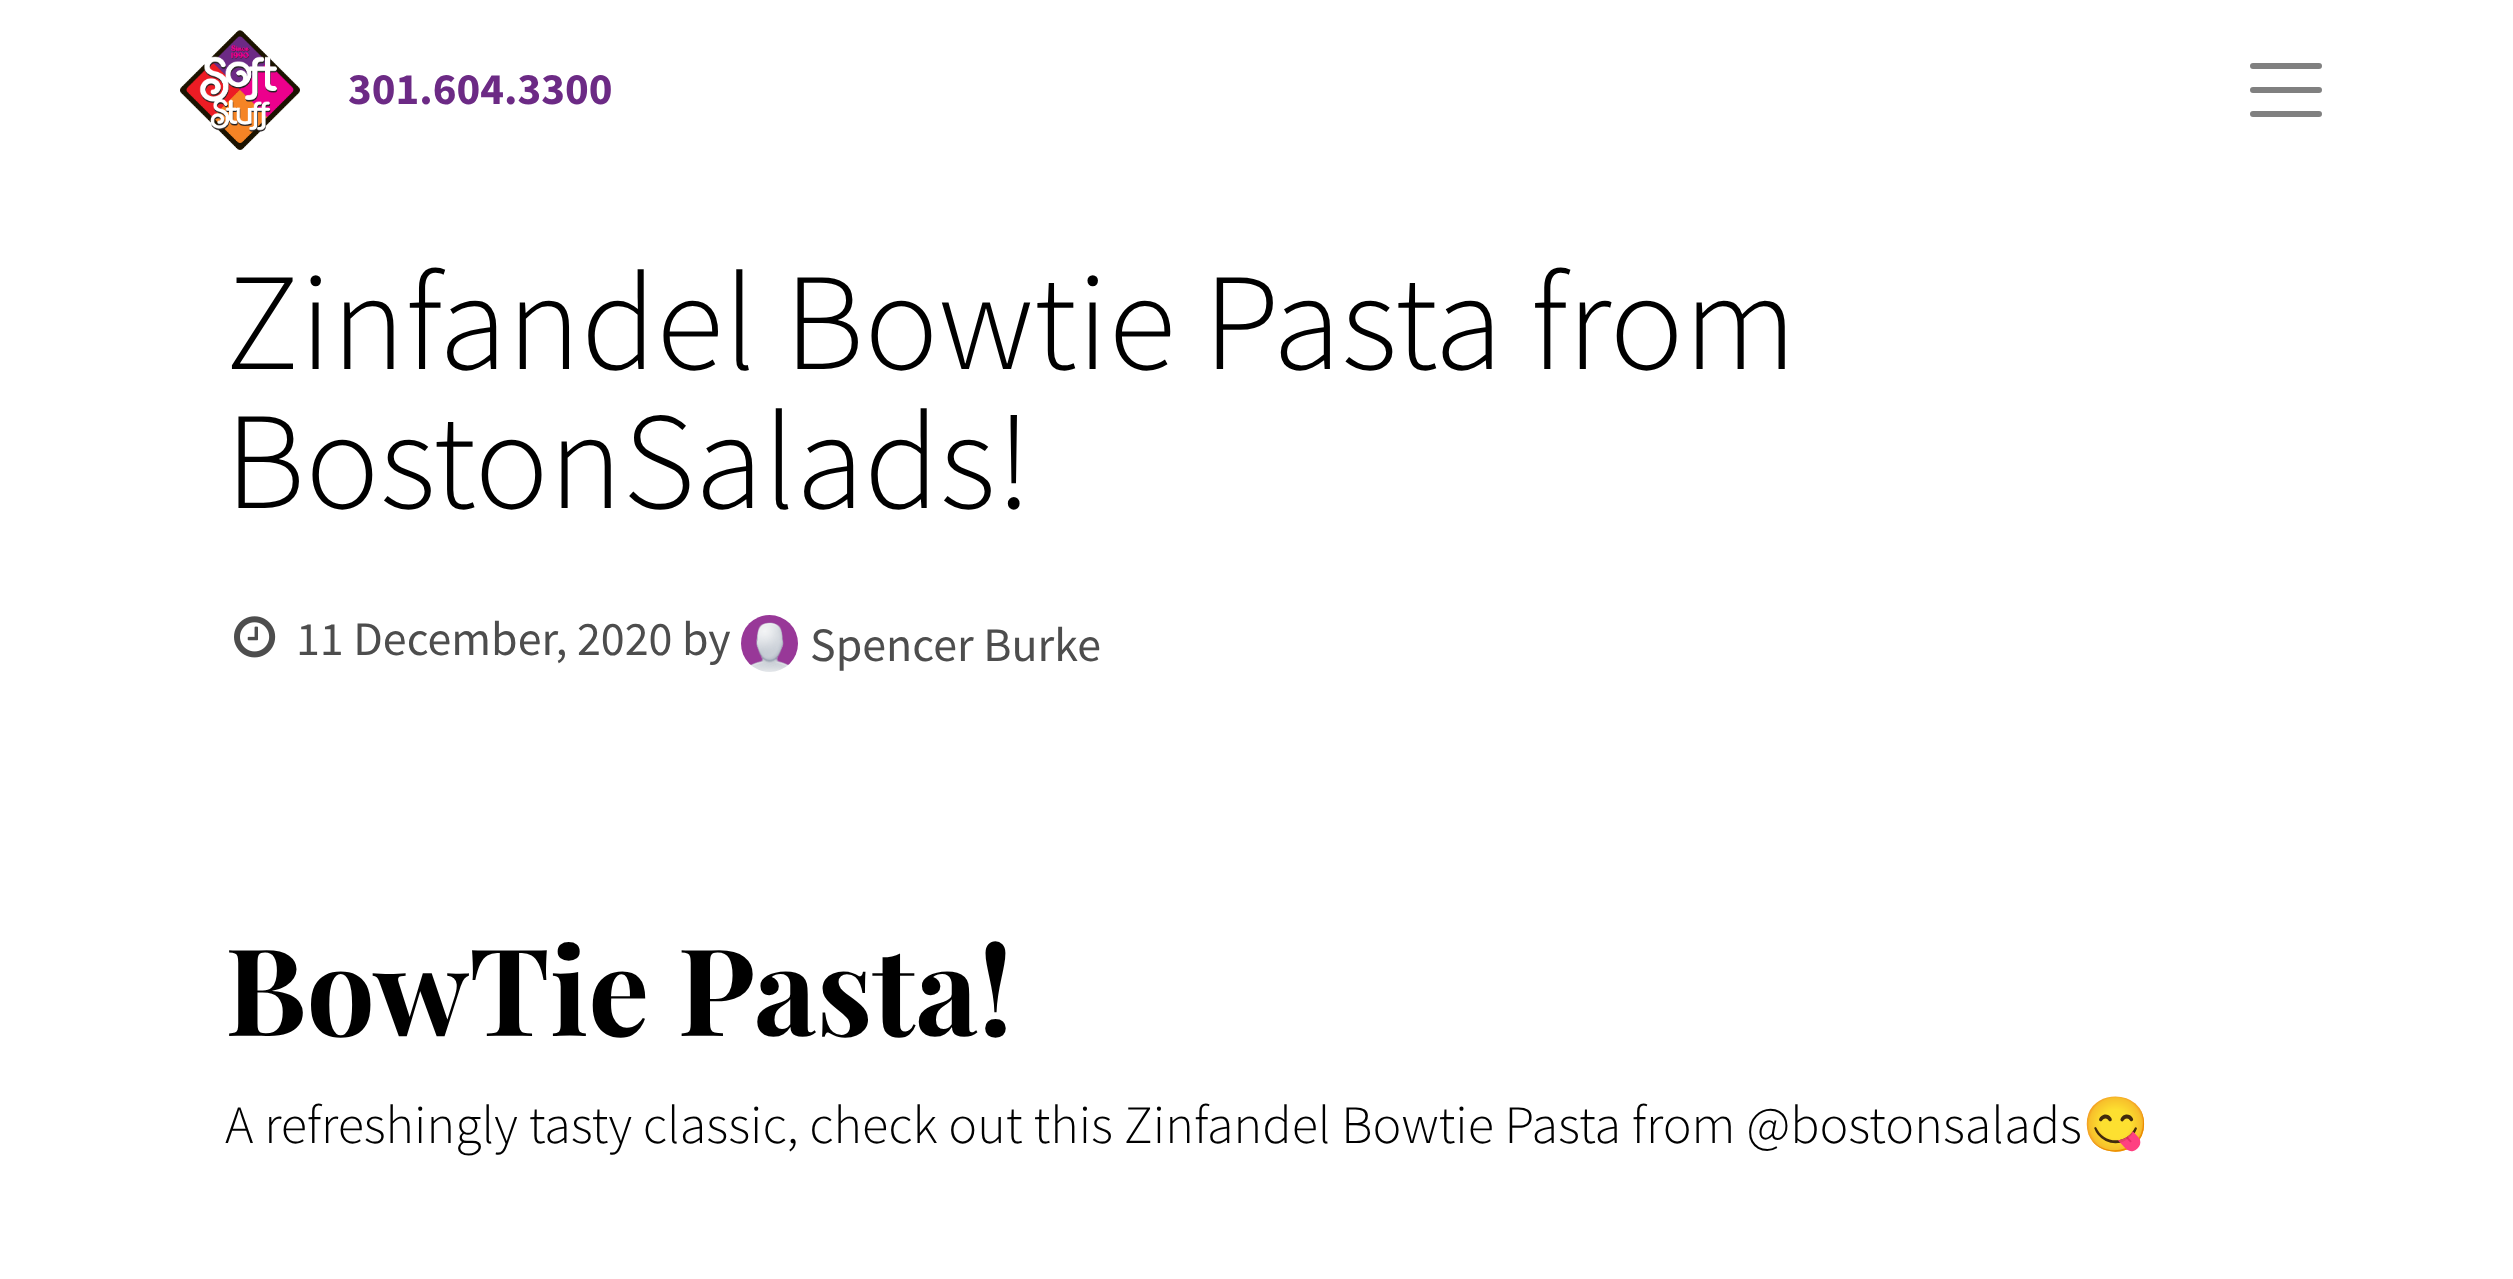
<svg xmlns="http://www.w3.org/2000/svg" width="2513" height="1279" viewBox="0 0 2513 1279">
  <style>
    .t1 { font: bold 45px Source Sans Pro; fill: #6c2a85; }
    .t2 { font: 300 138.75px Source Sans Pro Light; fill: #000; }
    .t3 { font: 48px Source Sans Pro; fill: #4d4d4d; }
    .t4 { font: bold 121.25px Playfair Display; fill: #000; }
    .t5 { font: 300 54px Source Sans Pro Light; fill: #000; }
    .t6 { font: 54px Noto Color Emoji; fill: #000; }
  </style>
  <rect width="100%" height="100%" fill="#fff"/>
  <image x="180" y="30" width="120" height="120" href="images/1.png"/>
  <text x="348" y="104" class="t1">301.604.3300</text>
  <path d="M2253 66H2319M2253 90H2319M2253 114H2319" fill="none" stroke="#808080" stroke-width="6" stroke-linecap="round"/>
  <text x="225" y="369" class="t2">Zinfandel Bowtie Pasta from</text>
  <text x="225" y="508" class="t2">BostonSalads!</text>
  <image x="234" y="616" width="42" height="42" href="images/2.png"/>
  <text x="296" y="655" class="t3">11 December, 2020 by</text>
  <image x="741" y="615" width="57" height="57" href="images/3.png"/>
  <text x="810" y="661" class="t3">Spencer Burke</text>
  <text x="225" y="1036" class="t4">BowTie Pasta!</text>
  <text x="225" y="1143" class="t5">A refreshingly tasty classic, check out this Zinfandel Bowtie Pasta from @bostonsalads</text>
  <text x="2082" y="1143" class="t6">😋</text>
</svg>
